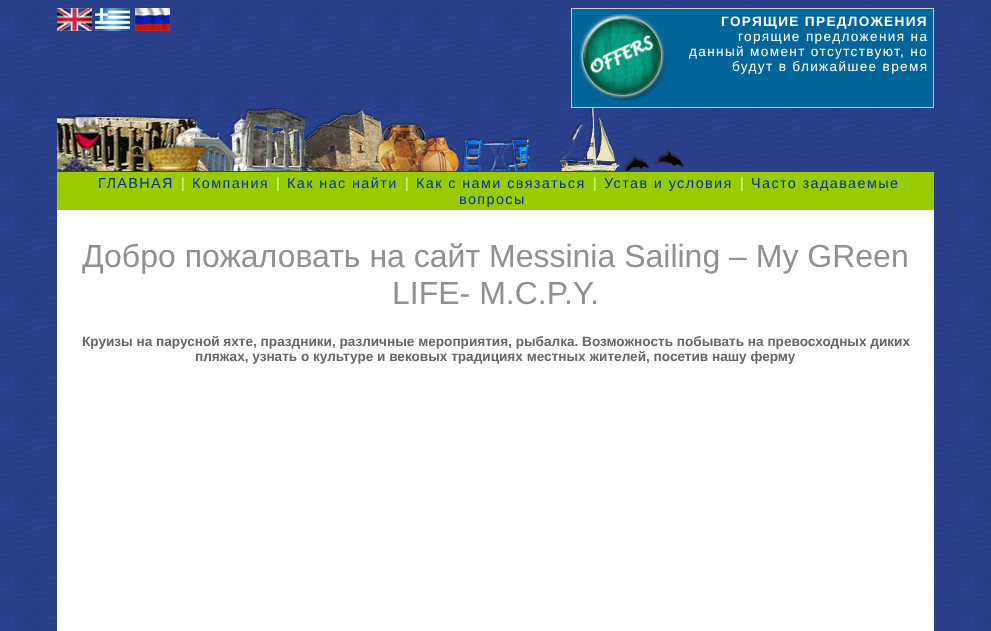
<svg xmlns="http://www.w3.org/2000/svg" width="991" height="631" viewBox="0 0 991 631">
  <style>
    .t1 { font: bold 13.6px Liberation Sans; letter-spacing: 1.35px; fill: #fff; }
    .t2 { font: 13.6px Liberation Sans; letter-spacing: 1.35px; fill: #fff; }
    .t3 { font: 14.4px Liberation Sans; letter-spacing: 1.4px; fill: #039; }
    .t4 { font: 14.4px Liberation Sans; fill: #cf9; }
    .t5 { font: 32px Liberation Sans; fill: #909090; }
    .t6 { font: bold 13.6px Liberation Sans; fill: #666; }
  </style>
  <rect width="100%" height="100%" fill="#fff"/>
  <image x="0" y="0" width="991" height="631" href="images/1.png"/>
  <image x="57" y="8" width="35" height="23" href="images/2.png"/>
  <image x="95" y="8" width="35" height="23" href="images/3.png"/>
  <image x="135" y="8" width="35" height="23" href="images/4.png"/>
  <rect x="571.5" y="8.5" width="362" height="99" fill="#069" stroke="#ccc"/>
  <image x="577" y="14" width="92" height="88" href="images/5.png"/>
  <text x="721" y="26" class="t1">ГОРЯЩИЕ ПРЕДЛОЖЕНИЯ</text>
  <text x="738" y="41" class="t2">горящие предложения на</text>
  <text x="689" y="56" class="t2">данный момент отсутствуют, но</text>
  <text x="732" y="71" class="t2">будут в ближайшее время</text>
  <image x="57" y="108" width="627" height="63" href="images/6.png"/>
  <rect x="57" y="210" width="877" height="421" fill="#fff"/>
  <rect x="57" y="172" width="877" height="38" fill="#9c0"/>
  <text x="98" y="188" class="t3">ГЛАВНАЯ</text>
  <text x="181" y="188" class="t4">|</text>
  <text x="192" y="188" class="t3">Компания</text>
  <text x="276" y="188" class="t4">|</text>
  <text x="287" y="188" class="t3">Как нас найти</text>
  <text x="405" y="188" class="t4">|</text>
  <text x="416" y="188" class="t3">Как с нами связаться</text>
  <text x="593" y="188" class="t4">|</text>
  <text x="604" y="188" class="t3">Устав и условия</text>
  <text x="740" y="188" class="t4">|</text>
  <text x="751" y="188" class="t3">Часто задаваемые</text>
  <text x="459" y="204" class="t3">вопросы</text>
  <text x="82" y="267" class="t5">Добро пожаловать на сайт Messinia Sailing – My GReen</text>
  <text x="392" y="304" class="t5">LIFE- M.C.P.Y.</text>
  <text x="82" y="346" class="t6">Круизы на парусной яхте, праздники, различные мероприятия, рыбалка. Возможность побывать на превосходных диких</text>
  <text x="195" y="361" class="t6">пляжах, узнать о культуре и вековых традициях местных жителей, посетив нашу ферму</text>
</svg>
